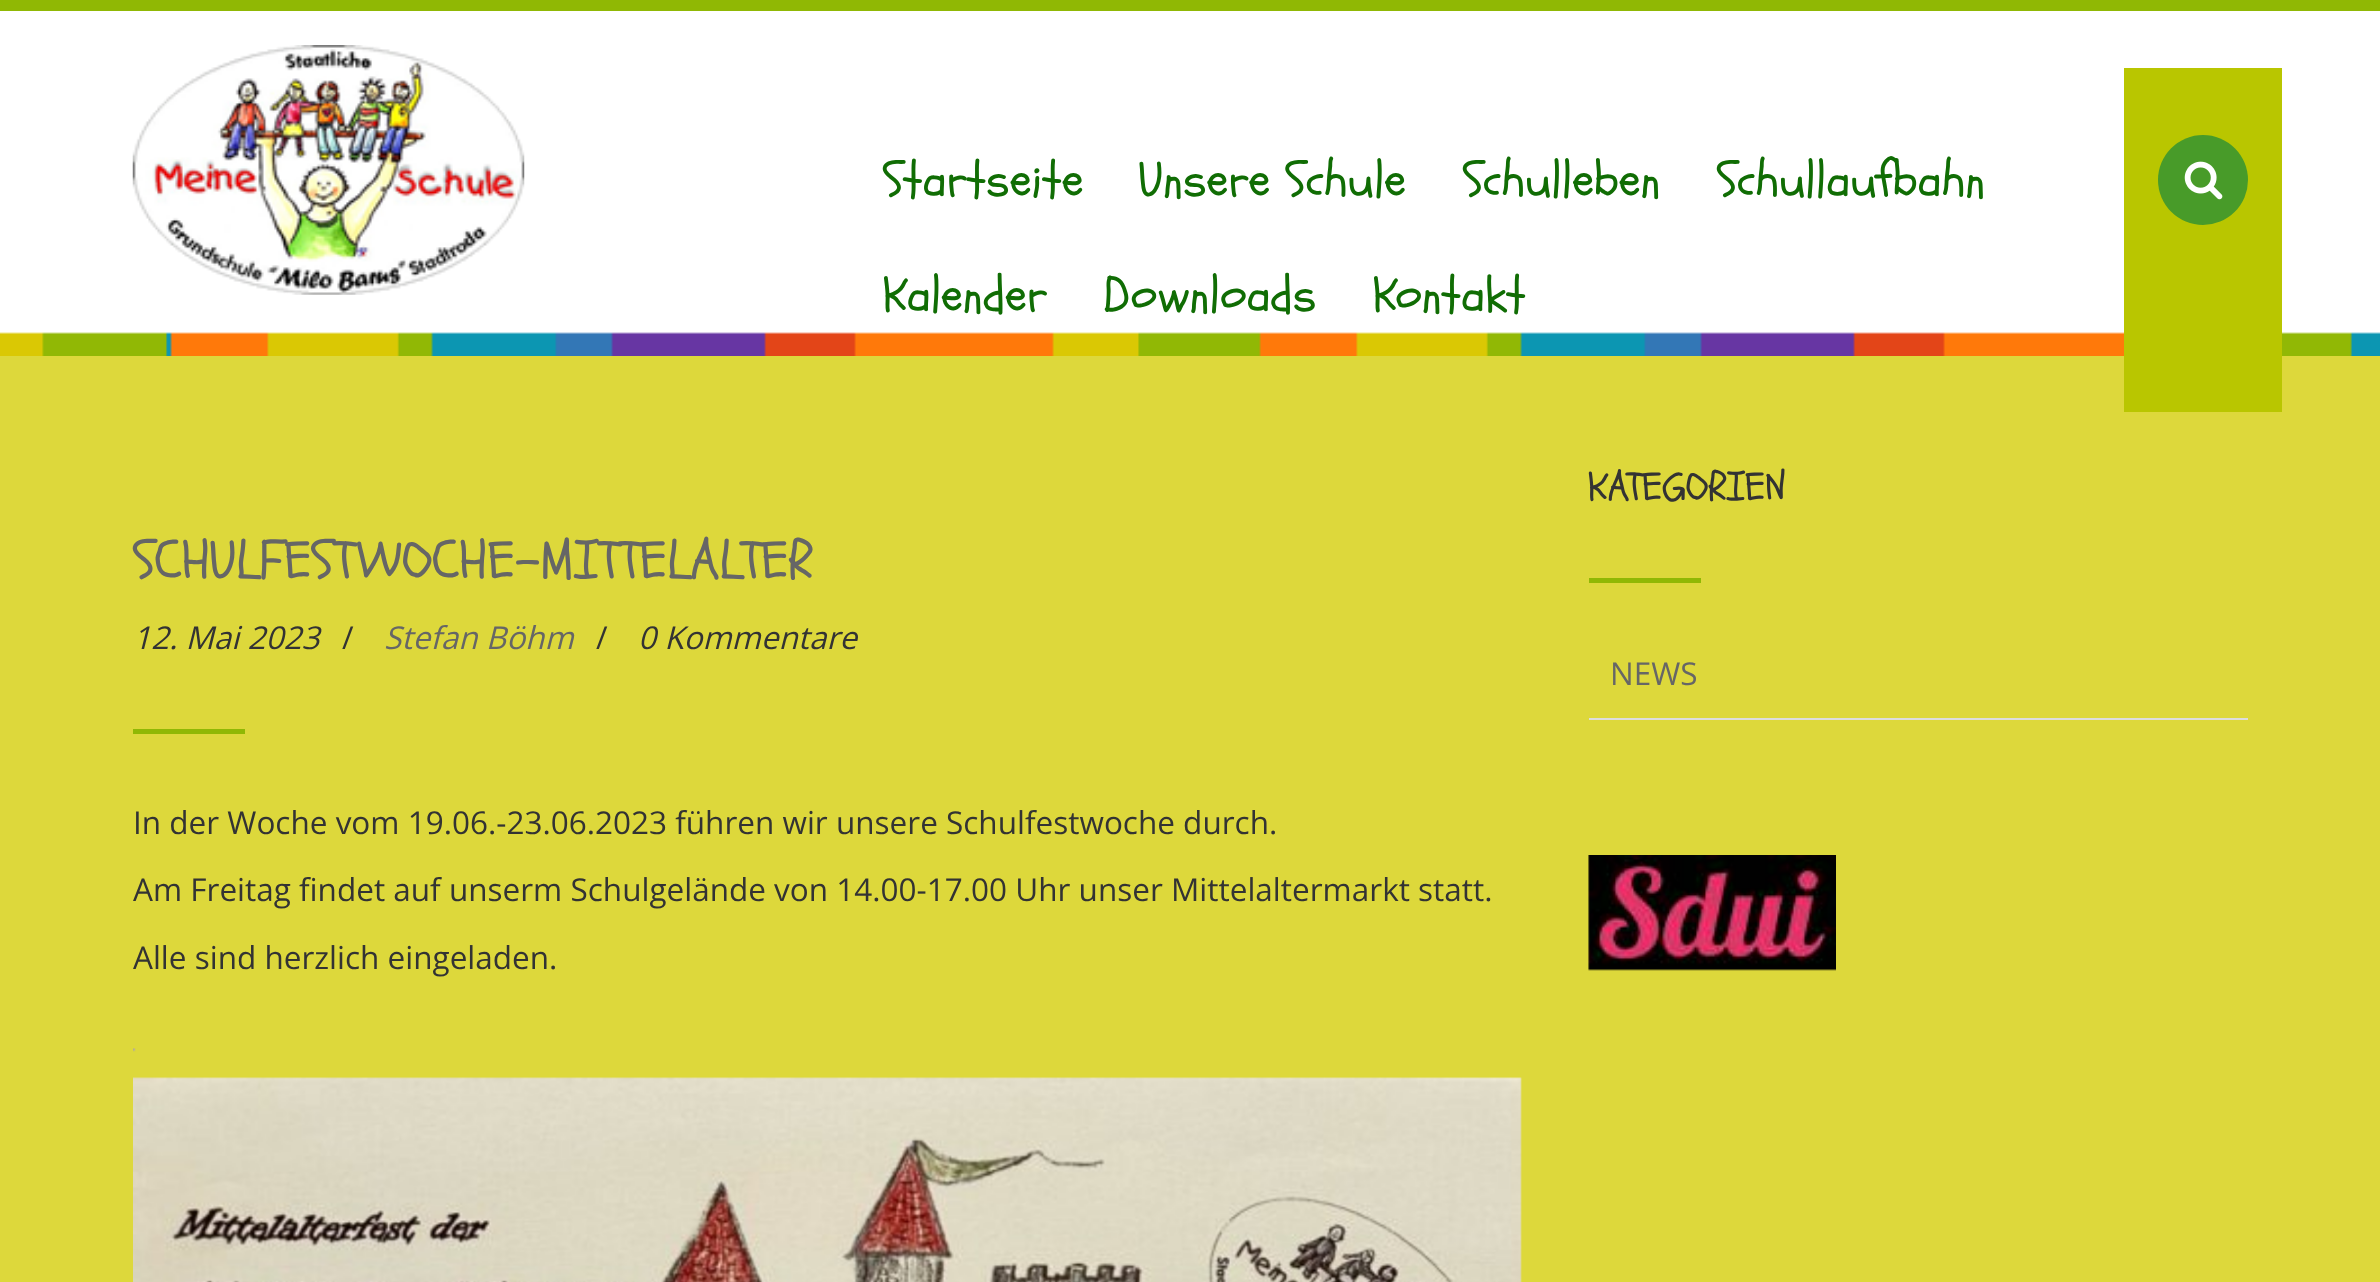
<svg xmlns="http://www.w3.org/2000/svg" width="2380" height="1282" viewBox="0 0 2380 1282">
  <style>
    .t1 { font: 49.5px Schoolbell; fill: #106d04; }
    .t2 { font: 54px Schoolbell; fill: #666; }
    .t3 { font: italic 31.5px Open Sans; fill: #333; }
    .t4 { font: 31.5px Open Sans; fill: #333; }
    .t5 { font: italic 31.5px Open Sans; fill: #666; }
    .t6 { font: 40.5px Schoolbell; fill: #333; }
    .t7 { font: 31.5px Open Sans; fill: #666; }
  </style>
  <rect width="100%" height="100%" fill="#ddd83b"/>
  <rect x="0" y="11" width="2380" height="323" fill="#fff"/>
  <image x="0" y="332" width="2380" height="24" href="images/1.png"/>
  <rect x="0" y="0" width="2380" height="11" fill="#90b804"/>
  <image x="132" y="45" width="393" height="250" href="images/2.png"/>
  <text x="883" y="196" class="t1">Startseite</text>
  <text x="1139" y="196" class="t1">Unsere Schule</text>
  <text x="1463" y="196" class="t1">Schulleben</text>
  <text x="1717" y="196" class="t1">Schullaufbahn</text>
  <text x="883" y="311" class="t1">Kalender</text>
  <text x="1103" y="311" class="t1">Downloads</text>
  <text x="1373" y="311" class="t1">Kontakt</text>
  <rect x="2124" y="68" width="158" height="344" fill="#b9c600"/>
  <circle cx="2203" cy="180" r="45" fill="#489b29"/>
  <image x="2184" y="161" width="39" height="39" href="images/3.png"/>
  <text x="133" y="578" class="t2">SCHULFESTWOCHE-MITTELALTER</text>
  <text x="133" y="649" class="t3">12. Mai 2023</text>
  <text x="342" y="649" class="t4">/</text>
  <text x="384" y="649" class="t5">Stefan Böhm</text>
  <text x="596" y="649" class="t4">/</text>
  <text x="638" y="649" class="t3">0 Kommentare</text>
  <rect x="133" y="729" width="112" height="5" fill="#90b804"/>
  <text x="133" y="834" class="t4">In der Woche vom 19.06.-23.06.2023 führen wir unsere Schulfestwoche durch.</text>
  <text x="133" y="901" class="t4">Am Freitag findet auf unserm Schulgelände von 14.00-17.00 Uhr unser Mittelaltermarkt statt.</text>
  <text x="133" y="969" class="t4">Alle sind herzlich eingeladen.</text>
  <image x="133" y="1048" width="3" height="4" href="images/4.png"/>
  <image x="133" y="1077" width="1389" height="205" href="images/5.png"/>
  <text x="1588" y="500" class="t6">KATEGORIEN</text>
  <rect x="1589" y="578" width="112" height="5" fill="#90b804"/>
  <rect x="1589" y="718" width="659" height="2" fill="#ddd"/>
  <text x="1610" y="685" class="t7">NEWS</text>
  <image x="1588" y="855" width="248" height="116" href="images/6.png"/>
</svg>
